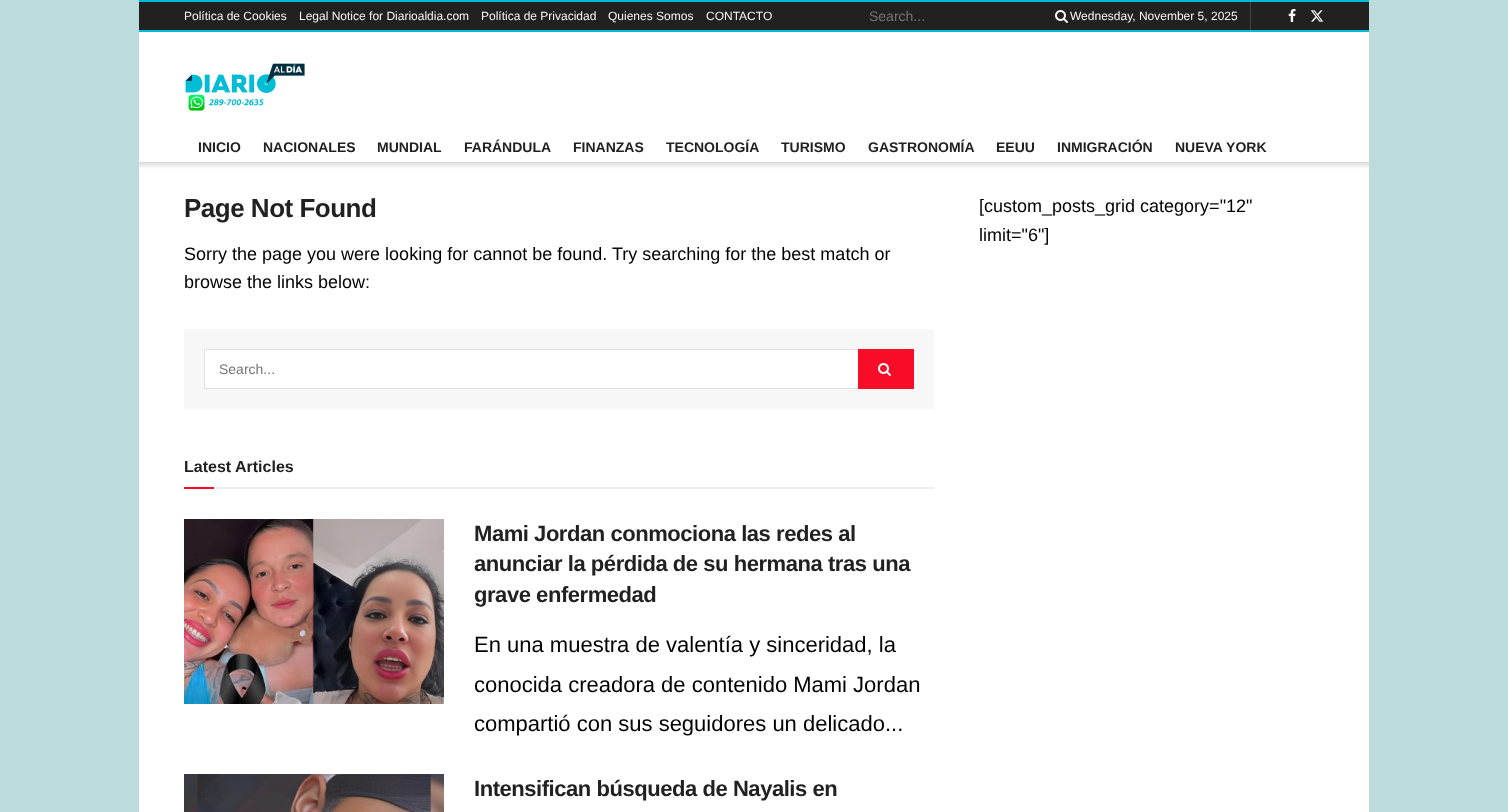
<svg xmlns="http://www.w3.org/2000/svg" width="1508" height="812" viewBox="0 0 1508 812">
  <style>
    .t1 { font: 12px Liberation Sans; fill: #f5f5f5; }
    .t2 { font: 14px Liberation Sans; fill: #757575; }
    .t3 { font: bold 14px Liberation Sans; fill: #212121; }
    .t4 { font: bold 26px Liberation Sans; letter-spacing: -0.5px; fill: #212121; }
    .t5 { font: 18px Liberation Sans; fill: #000; }
    .t6 { font: bold 16px Liberation Sans; fill: #212121; }
    .t7 { font: bold 22px Liberation Sans; letter-spacing: -0.45px; fill: #212121; }
    .t8 { font: 22px Liberation Sans; fill: #000; }
  </style>
  <defs>
    <linearGradient id="g1" gradientUnits="userSpaceOnUse" x1="754" y1="162" x2="754" y2="169"><stop offset="0" stop-color="#d9d9d9"/><stop offset="1" stop-color="#fff"/></linearGradient>
  </defs>
  <rect width="100%" height="100%" fill="#bcdbdb"/>
  <rect x="139" y="2" width="1230" height="28" fill="#212121"/>
  <rect x="139" y="0" width="1230" height="2" fill="#00bcd5"/>
  <text x="184" y="20" class="t1">Política de Cookies</text>
  <text x="299" y="20" class="t1">Legal Notice for Diarioaldia.com</text>
  <text x="481" y="20" class="t1">Política de Privacidad</text>
  <text x="608" y="20" class="t1">Quienes Somos</text>
  <text x="706" y="20" class="t1">CONTACTO</text>
  <text x="869" y="21" class="t2">Search...</text>
  <image x="1055" y="10" width="13" height="13" href="images/1.png"/>
  <rect x="1250" y="2" width="1" height="28" fill="#424242"/>
  <text x="1070" y="20" class="t1">Wednesday, November 5, 2025</text>
  <image x="1288" y="9" width="8" height="13" href="images/2.png"/>
  <image x="1310" y="10" width="14" height="12" href="images/3.png"/>
  <rect x="139" y="32" width="1230" height="130" fill="#fff"/>
  <rect x="139" y="30" width="1230" height="2" fill="#00bcd5"/>
  <image x="185" y="63" width="120" height="48" href="images/4.png"/>
  <text x="198" y="152" class="t3">INICIO</text>
  <text x="263" y="152" class="t3">NACIONALES</text>
  <text x="377" y="152" class="t3">MUNDIAL</text>
  <text x="464" y="152" class="t3">FARÁNDULA</text>
  <text x="573" y="152" class="t3">FINANZAS</text>
  <text x="666" y="152" class="t3">TECNOLOGÍA</text>
  <text x="781" y="152" class="t3">TURISMO</text>
  <text x="868" y="152" class="t3">GASTRONOMÍA</text>
  <text x="996" y="152" class="t3">EEUU</text>
  <text x="1057" y="152" class="t3">INMIGRACIÓN</text>
  <text x="1175" y="152" class="t3">NUEVA YORK</text>
  <rect x="139" y="162" width="1230" height="7" fill="url(#g1)"/>
  <rect x="139" y="169" width="1230" height="643" fill="#fff"/>
  <text x="184" y="217" class="t4">Page Not Found</text>
  <text x="184" y="260" class="t5">Sorry the page you were looking for cannot be found. Try searching for the best match or</text>
  <text x="184" y="288" class="t5">browse the links below:</text>
  <rect x="184" y="329" width="750" height="80" fill="#f7f7f7"/>
  <rect x="205" y="350" width="653" height="38" fill="#fff"/>
  <rect x="204.5" y="349.5" width="709" height="39" fill="none" stroke="#e0e0e0"/>
  <text x="219" y="374" class="t2">Search...</text>
  <rect x="858" y="349" width="56" height="40" fill="#f70d28"/>
  <image x="878" y="363" width="13" height="13" href="images/5.png"/>
  <rect x="214" y="487" width="720" height="2" fill="#eee"/>
  <text x="184" y="472" class="t6">Latest Articles</text>
  <rect x="184" y="487" width="30" height="2" fill="#f70d28"/>
  <image x="184" y="519" width="260" height="185" href="images/6.png"/>
  <text x="474" y="541" class="t7">Mami Jordan conmociona las redes al</text>
  <text x="474" y="571" class="t7">anunciar la pérdida de su hermana tras una</text>
  <text x="474" y="602" class="t7">grave enfermedad</text>
  <text x="474" y="652" class="t8">En una muestra de valentía y sinceridad, la</text>
  <text x="474" y="692" class="t8">conocida creadora de contenido Mami Jordan</text>
  <text x="474" y="731" class="t8">compartió con sus seguidores un delicado...</text>
  <image x="184" y="774" width="260" height="38" href="images/7.png"/>
  <text x="474" y="796" class="t7">Intensifican búsqueda de Nayalis en</text>
  <text x="979" y="212" class="t5">[custom_posts_grid category="12"</text>
  <text x="979" y="241" class="t5">limit="6"]</text>
</svg>
